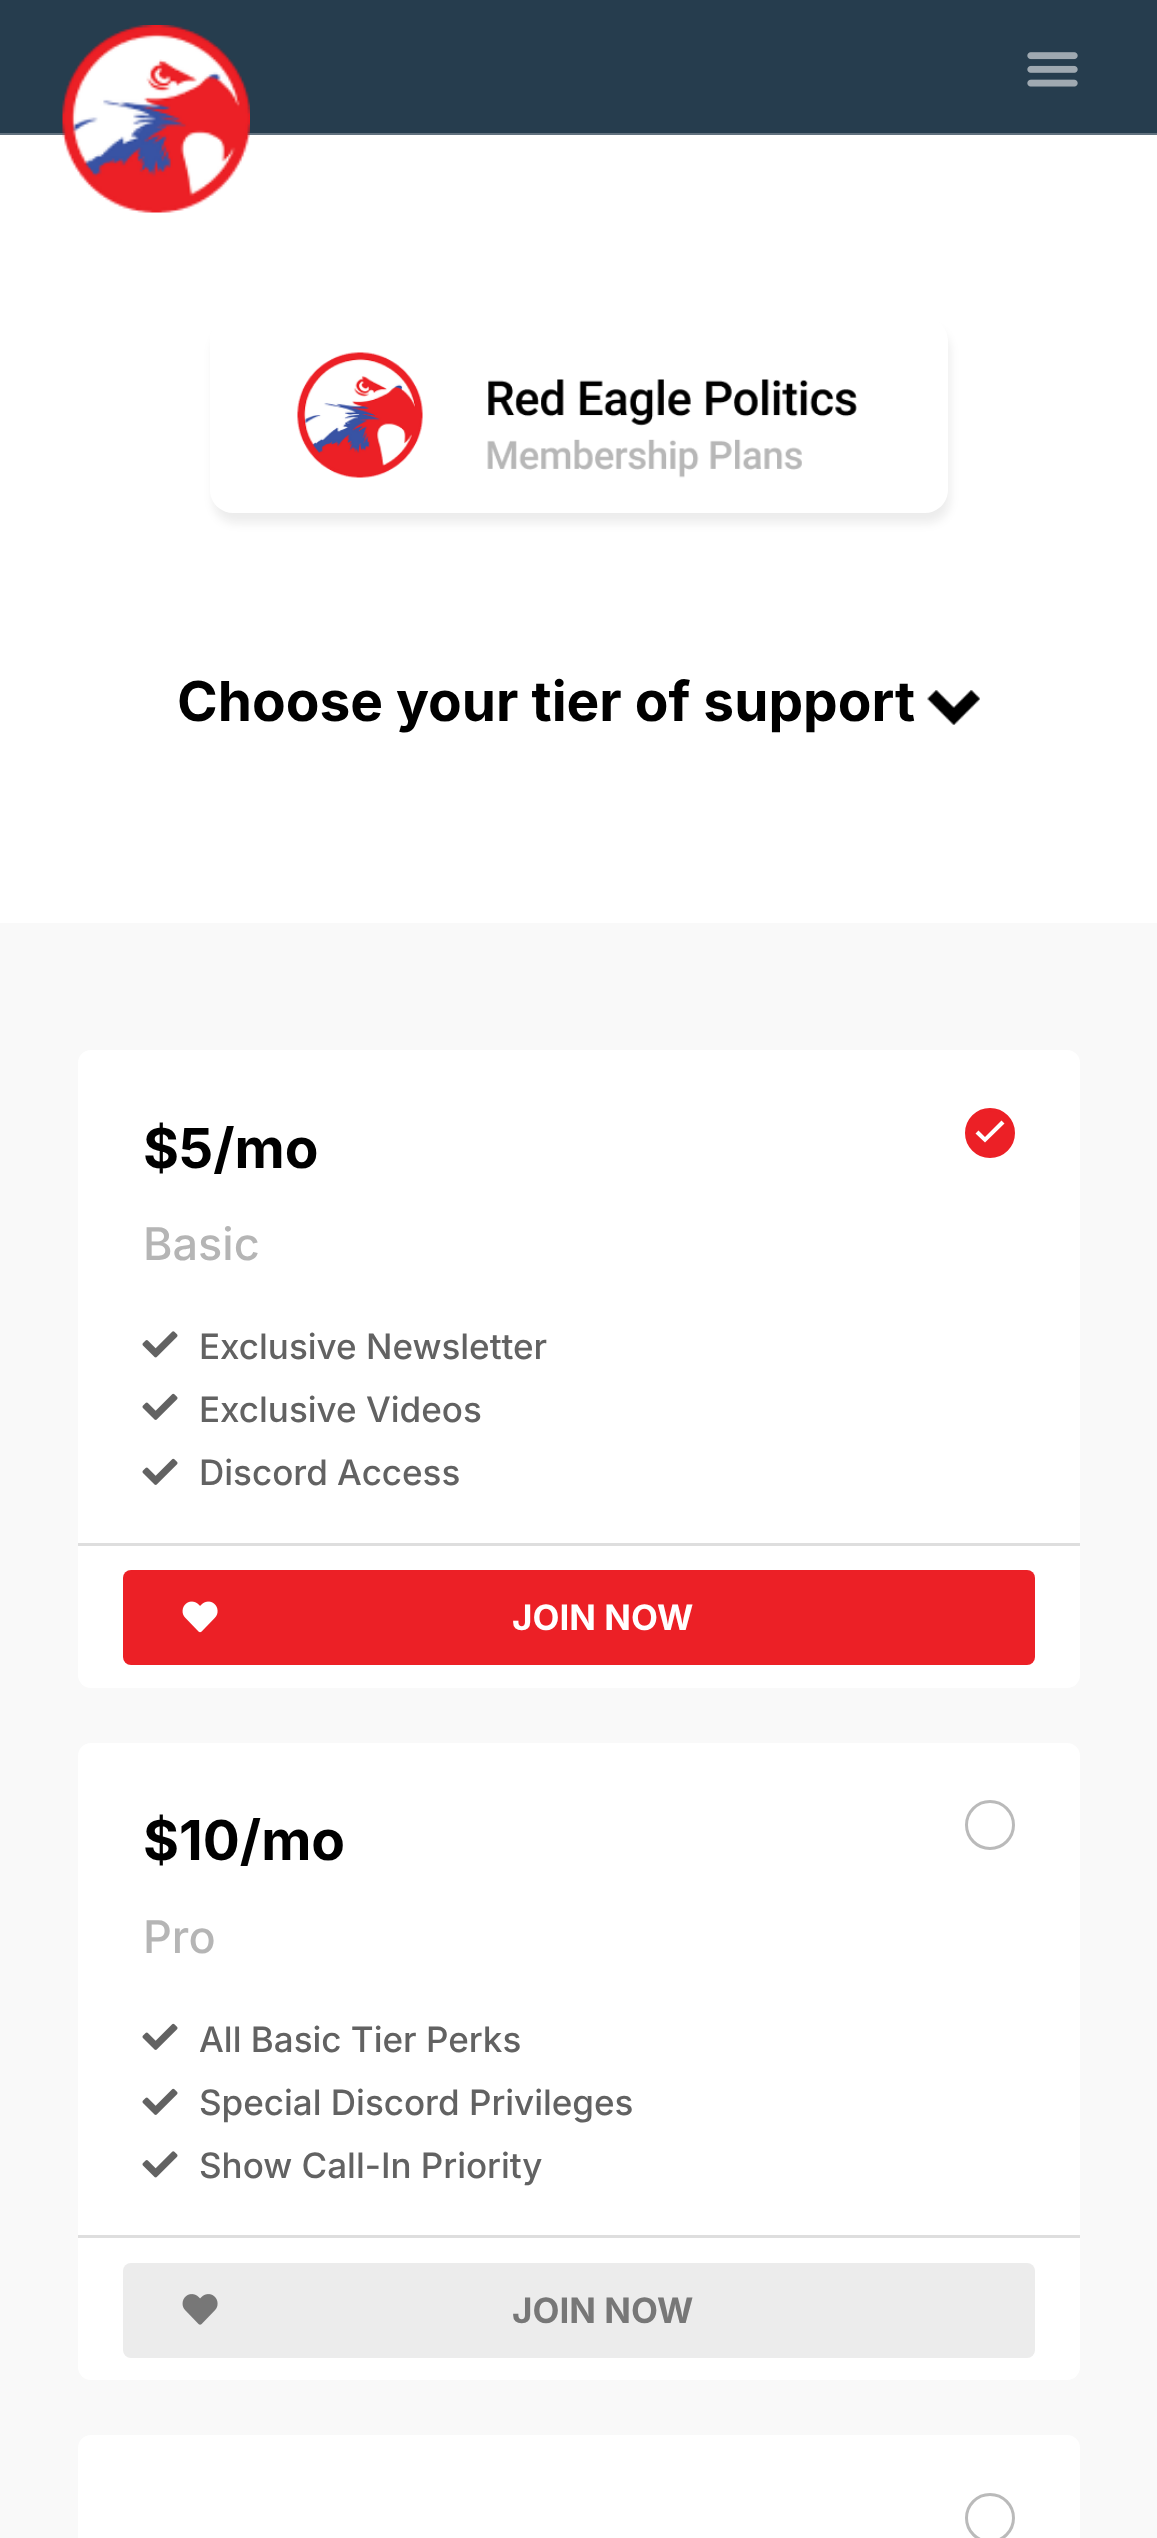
<svg xmlns="http://www.w3.org/2000/svg" width="1157" height="2538" viewBox="0 0 1157 2538">
  <style>
    .t1 { font: bold 55px Inter; fill: #000; }
    .t2 { font: 500 45px Inter; fill: #b5b5b5; }
    .t3 { font: 500 35px Inter; fill: #626262; }
    .t4 { font: bold 35px Inter; fill: #fff; }
    .t5 { font: bold 35px Inter; fill: #777; }
  </style>
  <defs>
    <clipPath id="clip1"><path d="M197 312H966V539H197ZM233 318H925C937.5 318 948 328.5 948 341V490C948 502.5 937.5 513 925 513H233C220.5 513 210 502.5 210 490V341C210 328.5 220.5 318 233 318Z" clip-rule="evenodd"/></clipPath>
  </defs>
  <rect width="100%" height="100%" fill="#fff"/>
  <rect x="0" y="0" width="1157" height="133" fill="#263d4e"/>
  <rect x="0" y="133" width="1157" height="2" fill="#61717e"/>
  <image x="62" y="25" width="188" height="188" href="images/1.png"/>
  <image x="1027" y="52" width="51" height="35" href="images/2.png"/>
  <g clip-path="url(#clip1)">
    <rect x="213" y="328" width="737" height="195" rx="23" fill="#0b0a0a14" filter="blur(5px)"/>
  </g>
  <image x="297" y="352" width="560" height="126" href="images/3.png"/>
  <text x="177" y="721" class="t1">Choose your tier of support</text>
  <image x="927" y="690" width="53" height="35" href="images/4.png"/>
  <rect x="0" y="923" width="1157" height="1615" fill="#f9f9f9"/>
  <rect x="78" y="1050" width="1002" height="638" rx="13" fill="#fff"/>
  <text x="143" y="1168" class="t1">$5/mo</text>
  <circle cx="990" cy="1133" r="23.5" fill="#ec2026" stroke="#ec2026" stroke-width="3"/>
  <path d="M985 1137L978.5 1130.5L975.5 1133.5L985 1142.5L1004.5 1123.5L1001.5 1120.5Z" fill="#fff"/>
  <text x="143" y="1260" class="t2">Basic</text>
  <image x="142" y="1331" width="36" height="27" href="images/5.png"/>
  <text x="199" y="1359" class="t3">Exclusive Newsletter</text>
  <image x="142" y="1393" width="36" height="27" href="images/6.png"/>
  <text x="199" y="1422" class="t3">Exclusive Videos</text>
  <image x="142" y="1458" width="36" height="27" href="images/6.png"/>
  <text x="199" y="1485" class="t3">Discord Access</text>
  <rect x="78" y="1543" width="1002" height="3" fill="#dedede"/>
  <rect x="123" y="1570" width="912" height="95" rx="8" fill="#ec2026"/>
  <image x="182" y="1601" width="36" height="32" href="images/7.png"/>
  <text x="512" y="1630" class="t4">JOIN NOW</text>
  <rect x="78" y="1743" width="1002" height="637" rx="13" fill="#fff"/>
  <text x="143" y="1860" class="t1">$10/mo</text>
  <circle cx="990" cy="1825" r="23.5" fill="none" stroke="#bababa" stroke-width="3"/>
  <text x="143" y="1953" class="t2">Pro</text>
  <image x="142" y="2023" width="36" height="27" href="images/6.png"/>
  <text x="199" y="2052" class="t3">All Basic Tier Perks</text>
  <image x="142" y="2088" width="36" height="27" href="images/6.png"/>
  <text x="199" y="2115" class="t3">Special Discord Privileges</text>
  <image x="142" y="2151" width="36" height="27" href="images/5.png"/>
  <text x="199" y="2178" class="t3">Show Call-In Priority</text>
  <rect x="78" y="2235" width="1002" height="3" fill="#dedede"/>
  <rect x="123" y="2263" width="912" height="95" rx="8" fill="#ececec"/>
  <image x="182" y="2294" width="36" height="31" href="images/8.png"/>
  <text x="512" y="2323" class="t5">JOIN NOW</text>
  <rect x="78" y="2435" width="1002" height="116" rx="13" fill="#fff"/>
  <circle cx="990" cy="2518" r="23.5" fill="none" stroke="#bababa" stroke-width="3"/>
</svg>
